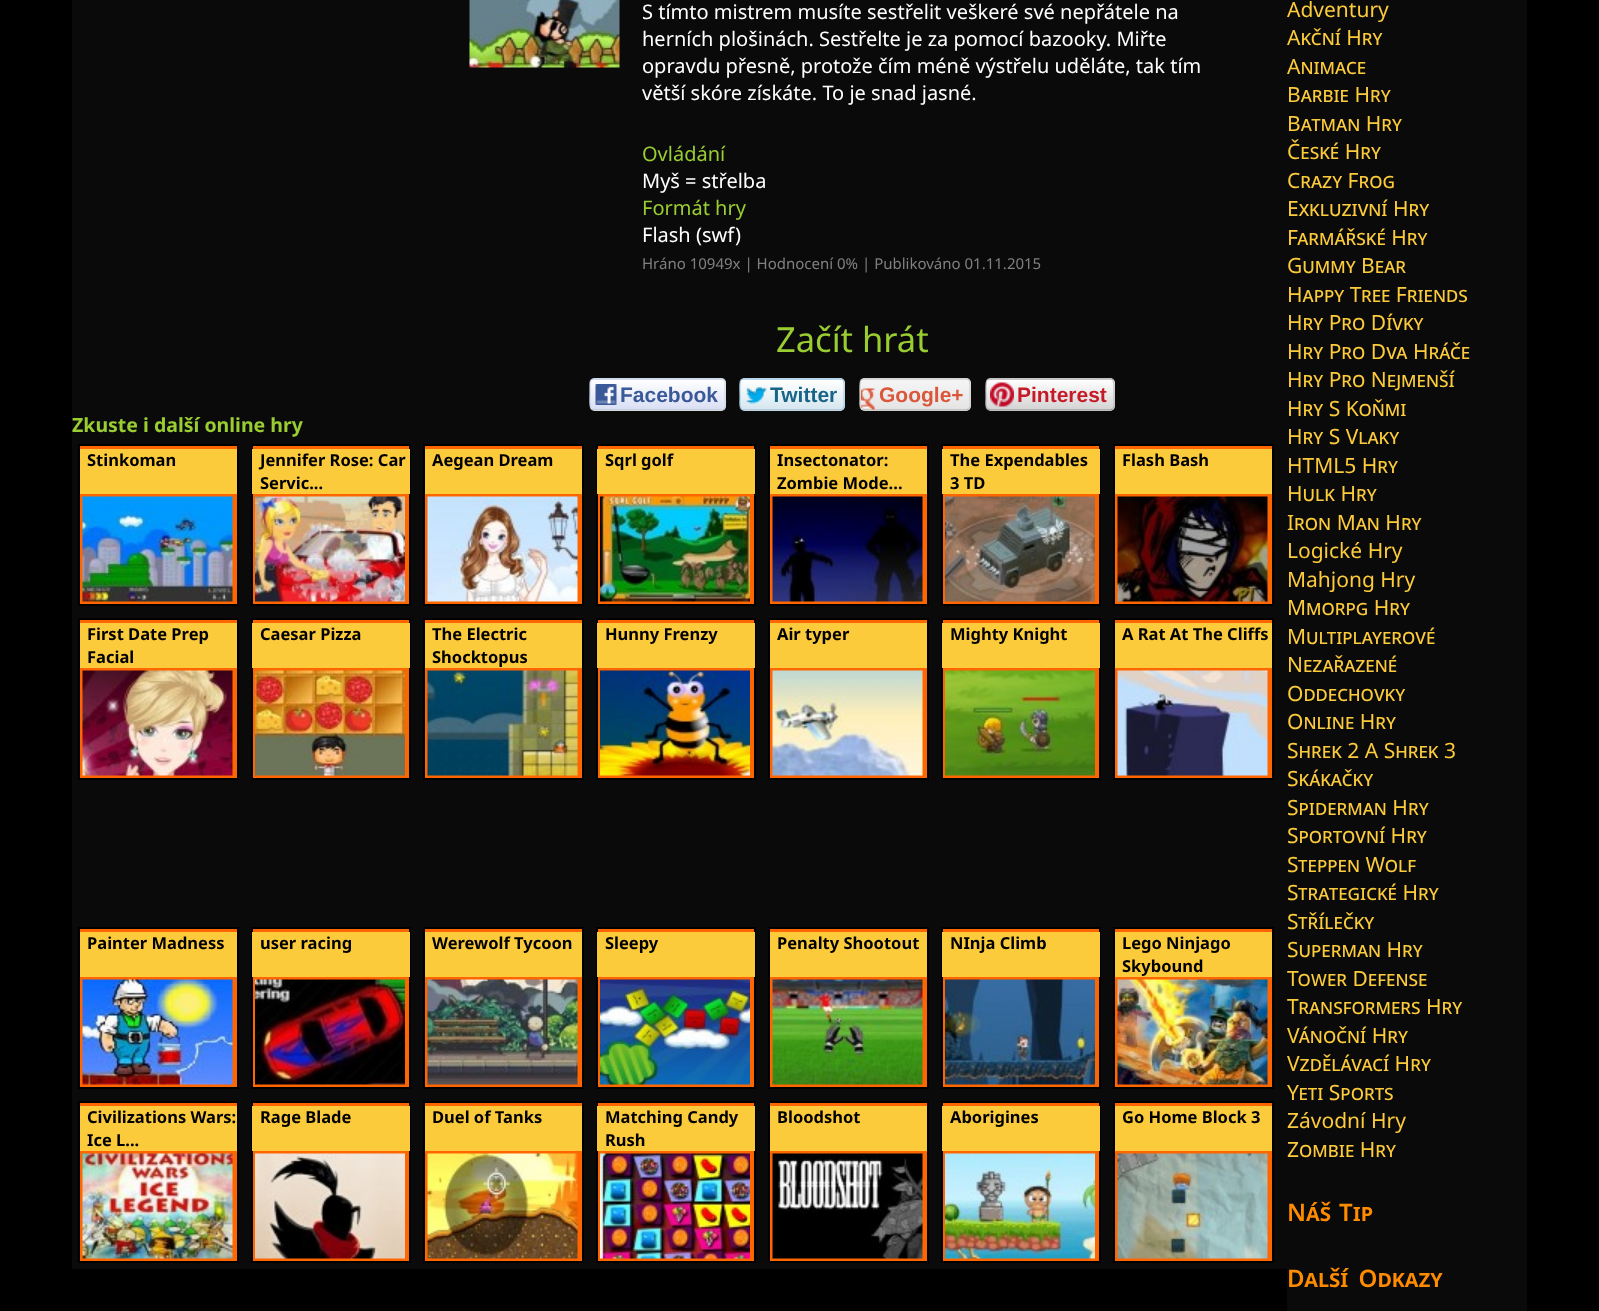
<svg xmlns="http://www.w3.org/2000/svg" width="1599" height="1311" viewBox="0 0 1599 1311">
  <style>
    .t1 { font: 20px Noto Sans; fill: #fff; }
    .t2 { font: 20px Noto Sans; fill: #9acd32; }
    .t3 { font: 15px Noto Sans; fill: #808080; }
    .t4 { font: 34.5px Noto Sans; fill: #9acd32; }
    .t5 { font: bold 21px Liberation Sans; fill: #3b5998; }
    .t6 { font: bold 21px Liberation Sans; fill: #186487; }
    .t7 { font: bold 21px Liberation Sans; fill: #da573b; }
    .t8 { font: bold 21px Liberation Sans; fill: #c71a28; }
    .t9 { font: bold 19.5px Noto Sans; fill: #9acd32; }
    .t10 { font: bold 16.5px Noto Sans; fill: #000; }
    .t11 { font: 21px Noto Sans; fill: #fccb3b; }
    .t12 { font: 21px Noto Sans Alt; fill: #fccb3b; }
    .t13 { font: 600 24px Noto Sans Alt; fill: #ff8c00; }
  </style>
  <defs>
    <clipPath id="clip1"><rect x="590" y="378" width="136" height="33" rx="5"/></clipPath>
    <linearGradient id="g1" gradientUnits="userSpaceOnUse" x1="658" y1="350" x2="658" y2="380"><stop offset="0" stop-color="#fff"/><stop offset="1" stop-color="#d8def4"/></linearGradient>
    <linearGradient id="g2" gradientUnits="userSpaceOnUse" x1="658" y1="380" x2="658" y2="410"><stop offset="0" stop-color="#fff"/><stop offset="1" stop-color="#d8def4"/></linearGradient>
    <linearGradient id="g3" gradientUnits="userSpaceOnUse" x1="658" y1="410" x2="658" y2="440"><stop offset="0" stop-color="#fff"/><stop offset="1" stop-color="#d8def4"/></linearGradient>
    <clipPath id="clip2"><rect x="740" y="378" width="105" height="33" rx="5"/></clipPath>
    <linearGradient id="g4" gradientUnits="userSpaceOnUse" x1="792" y1="350" x2="792" y2="380"><stop offset="0" stop-color="#fff"/><stop offset="1" stop-color="#d5e6ef"/></linearGradient>
    <linearGradient id="g5" gradientUnits="userSpaceOnUse" x1="792" y1="380" x2="792" y2="410"><stop offset="0" stop-color="#fff"/><stop offset="1" stop-color="#d5e6ef"/></linearGradient>
    <linearGradient id="g6" gradientUnits="userSpaceOnUse" x1="792" y1="410" x2="792" y2="440"><stop offset="0" stop-color="#fff"/><stop offset="1" stop-color="#d5e6ef"/></linearGradient>
    <clipPath id="clip3"><rect x="860" y="378" width="111" height="33" rx="5"/></clipPath>
    <linearGradient id="g7" gradientUnits="userSpaceOnUse" x1="915" y1="350" x2="915" y2="380"><stop offset="0" stop-color="#f5f5f5"/><stop offset="1" stop-color="#e4e4e4"/></linearGradient>
    <linearGradient id="g8" gradientUnits="userSpaceOnUse" x1="915" y1="380" x2="915" y2="410"><stop offset="0" stop-color="#f5f5f5"/><stop offset="1" stop-color="#e4e4e4"/></linearGradient>
    <linearGradient id="g9" gradientUnits="userSpaceOnUse" x1="915" y1="410" x2="915" y2="440"><stop offset="0" stop-color="#f5f5f5"/><stop offset="1" stop-color="#e4e4e4"/></linearGradient>
    <clipPath id="clip4"><rect x="986" y="378" width="129" height="33" rx="5"/></clipPath>
    <linearGradient id="g10" gradientUnits="userSpaceOnUse" x1="1050" y1="350" x2="1050" y2="380"><stop offset="0" stop-color="#fefefe"/><stop offset="1" stop-color="#d3d3d3"/></linearGradient>
    <linearGradient id="g11" gradientUnits="userSpaceOnUse" x1="1050" y1="380" x2="1050" y2="410"><stop offset="0" stop-color="#fefefe"/><stop offset="1" stop-color="#d3d3d3"/></linearGradient>
    <linearGradient id="g12" gradientUnits="userSpaceOnUse" x1="1050" y1="410" x2="1050" y2="440"><stop offset="0" stop-color="#fefefe"/><stop offset="1" stop-color="#d3d3d3"/></linearGradient>
  </defs>
  <rect width="100%" height="100%" fill="#000"/>
  <rect x="72" y="0" width="1215" height="1269" fill="#0a0a0a"/>
  <image x="469" y="0" width="151" height="68" href="images/1.png"/>
  <text x="642" y="19" class="t1">S tímto mistrem musíte sestřelit veškeré své nepřátele na</text>
  <text x="642" y="46" class="t1">herních plošinách. Sestřelte je za pomocí bazooky. Miřte</text>
  <text x="642" y="73" class="t1">opravdu přesně, protože čím méně výstřelu uděláte, tak tím</text>
  <text x="642" y="100" class="t1">větší skóre získáte. To je snad jasné.</text>
  <text x="642" y="161" class="t2">Ovládání</text>
  <text x="642" y="188" class="t1">Myš = střelba</text>
  <text x="642" y="215" class="t2">Formát hry</text>
  <text x="642" y="242" class="t1">Flash (swf)</text>
  <text x="642" y="269" class="t3">Hráno 10949x | Hodnocení 0% | Publikováno 01.11.2015</text>
  <text x="776" y="352" class="t4">Začít hrát</text>
  <g clip-path="url(#clip1)">
    <rect x="590" y="378" width="136" height="2" fill="url(#g1)"/>
    <rect x="590" y="380" width="136" height="30" fill="url(#g2)"/>
    <rect x="590" y="410" width="136" height="1" fill="url(#g3)"/>
  </g>
  <path d="M724 409C723.5 410 722.5 410 721.5 410H594C593 410 592 410 591.5 409" fill="none" stroke="#bdc2cbcc" stroke-width="1.5"/>
  <path d="M591.5 409C589 407 590 397.5 590 394.5V386.5C590 383.5 589.5 379 594 379H721.5C726 379 725 383.5 725 386.5V394.5C725 397.5 726.5 407 724 409" fill="none" stroke="#cad4e7cc" stroke-width="1.5"/>
  <image x="595" y="384" width="22" height="21" href="images/2.png"/>
  <text x="620" y="402" class="t5">Facebook</text>
  <g clip-path="url(#clip2)">
    <rect x="740" y="378" width="105" height="2" fill="url(#g4)"/>
    <rect x="740" y="380" width="105" height="30" fill="url(#g5)"/>
    <rect x="740" y="410" width="105" height="1" fill="url(#g6)"/>
  </g>
  <path d="M842.5 409C842 410 841 410 840 410H744C743 410 742 410 741.5 409" fill="none" stroke="#9ebacccc" stroke-width="1.5"/>
  <path d="M741.5 409C739 406.5 740 401.5 740 398.5C740 375.5 736 379 760 379H824C848 379 844 375.5 844 398.5C844 401.5 845 406.5 842.5 409" fill="none" stroke="#a4cce5cc" stroke-width="1.5"/>
  <image x="745" y="387" width="22" height="17" href="images/3.png"/>
  <text x="770" y="402" class="t6">Twitter</text>
  <g clip-path="url(#clip3)">
    <rect x="860" y="378" width="111" height="2" fill="url(#g7)"/>
    <rect x="860" y="380" width="111" height="30" fill="url(#g8)"/>
    <rect x="860" y="410" width="111" height="1" fill="url(#g9)"/>
  </g>
  <path d="M968.5 409L966 410H863.5L861.5 409" fill="none" stroke="#b3b3b3cc" stroke-width="1.5"/>
  <path d="M861.5 409C859 406.5 860 401.5 860 398.5C860 375 856.5 379 881 379H949C973.5 379 970 375 970 398.5C970 401.5 971 406.5 968.5 409" fill="none" stroke="#cccccccc" stroke-width="1.5"/>
  <image x="861" y="388" width="15" height="22" href="images/4.png"/>
  <text x="879" y="402" class="t7">Google+</text>
  <g clip-path="url(#clip4)">
    <rect x="986" y="378" width="129" height="2" fill="url(#g10)"/>
    <rect x="986" y="380" width="129" height="30" fill="url(#g11)"/>
    <rect x="986" y="410" width="129" height="1" fill="url(#g12)"/>
  </g>
  <path d="M1112.5 409L1110.5 410H1010H990L987.5 409" fill="none" stroke="#999999cc" stroke-width="1.5"/>
  <path d="M987.5 409C985 406.5 986 401.5 986 398.5C986 374 982.5 379 1010 379H1090C1117.5 379 1114 374 1114 398.5C1114 401.5 1115 406.5 1112.5 409" fill="none" stroke="#bababacc" stroke-width="1.5"/>
  <image x="990" y="382" width="24" height="25" href="images/5.png"/>
  <text x="1017" y="402" class="t8">Pinterest</text>
  <text x="72" y="432" class="t9">Zkuste i další online hry</text>
  <rect x="79" y="445" width="159" height="160" fill="#f60" stroke="#000" stroke-width="2"/>
  <rect x="80" y="449" width="157" height="45" fill="#fccb3b"/>
  <text x="87" y="466" class="t10">Stinkoman</text>
  <image x="82" y="496" width="151" height="106" href="images/6.png"/>
  <rect x="252" y="445" width="158" height="160" fill="#f60" stroke="#000" stroke-width="2"/>
  <rect x="252" y="449" width="158" height="45" fill="#fccb3b"/>
  <text x="260" y="466" class="t10">Jennifer Rose: Car</text>
  <text x="260" y="489" class="t10">Servic...</text>
  <image x="255" y="496" width="150" height="106" href="images/7.png"/>
  <rect x="424" y="445" width="159" height="160" fill="#f60" stroke="#000" stroke-width="2"/>
  <rect x="425" y="449" width="157" height="45" fill="#fccb3b"/>
  <text x="432" y="466" class="t10">Aegean Dream</text>
  <image x="427" y="496" width="151" height="106" href="images/8.png"/>
  <rect x="597" y="445" width="158" height="160" fill="#f60" stroke="#000" stroke-width="2"/>
  <rect x="597" y="449" width="158" height="45" fill="#fccb3b"/>
  <text x="605" y="466" class="t10">Sqrl golf</text>
  <image x="600" y="496" width="150" height="106" href="images/9.png"/>
  <rect x="769" y="445" width="159" height="160" fill="#f60" stroke="#000" stroke-width="2"/>
  <rect x="770" y="449" width="157" height="45" fill="#fccb3b"/>
  <text x="777" y="466" class="t10">Insectonator:</text>
  <text x="777" y="489" class="t10">Zombie Mode...</text>
  <image x="772" y="496" width="151" height="106" href="images/10.png"/>
  <rect x="942" y="445" width="158" height="160" fill="#f60" stroke="#000" stroke-width="2"/>
  <rect x="942" y="449" width="158" height="45" fill="#fccb3b"/>
  <text x="950" y="466" class="t10">The Expendables</text>
  <text x="950" y="489" class="t10">3 TD</text>
  <image x="945" y="496" width="150" height="106" href="images/11.png"/>
  <rect x="1114" y="445" width="159" height="160" fill="#f60" stroke="#000" stroke-width="2"/>
  <rect x="1115" y="449" width="157" height="45" fill="#fccb3b"/>
  <text x="1122" y="466" class="t10">Flash Bash</text>
  <image x="1117" y="496" width="151" height="106" href="images/12.png"/>
  <rect x="79" y="619" width="159" height="160" fill="#f60" stroke="#000" stroke-width="2"/>
  <rect x="80" y="623" width="157" height="45" fill="#fccb3b"/>
  <text x="87" y="640" class="t10">First Date Prep</text>
  <text x="87" y="663" class="t10">Facial</text>
  <image x="82" y="670" width="151" height="106" href="images/13.png"/>
  <rect x="252" y="619" width="158" height="160" fill="#f60" stroke="#000" stroke-width="2"/>
  <rect x="252" y="623" width="158" height="45" fill="#fccb3b"/>
  <text x="260" y="640" class="t10">Caesar Pizza</text>
  <image x="255" y="670" width="150" height="106" href="images/14.png"/>
  <rect x="424" y="619" width="159" height="160" fill="#f60" stroke="#000" stroke-width="2"/>
  <rect x="425" y="623" width="157" height="45" fill="#fccb3b"/>
  <text x="432" y="640" class="t10">The Electric</text>
  <text x="432" y="663" class="t10">Shocktopus</text>
  <image x="427" y="670" width="151" height="106" href="images/15.png"/>
  <rect x="597" y="619" width="158" height="160" fill="#f60" stroke="#000" stroke-width="2"/>
  <rect x="597" y="623" width="158" height="45" fill="#fccb3b"/>
  <text x="605" y="640" class="t10">Hunny Frenzy</text>
  <image x="600" y="670" width="150" height="106" href="images/16.png"/>
  <rect x="769" y="619" width="159" height="160" fill="#f60" stroke="#000" stroke-width="2"/>
  <rect x="770" y="623" width="157" height="45" fill="#fccb3b"/>
  <text x="777" y="640" class="t10">Air typer</text>
  <image x="772" y="670" width="151" height="106" href="images/17.png"/>
  <rect x="942" y="619" width="158" height="160" fill="#f60" stroke="#000" stroke-width="2"/>
  <rect x="942" y="623" width="158" height="45" fill="#fccb3b"/>
  <text x="950" y="640" class="t10">Mighty Knight</text>
  <image x="945" y="670" width="150" height="106" href="images/18.png"/>
  <rect x="1114" y="619" width="159" height="160" fill="#f60" stroke="#000" stroke-width="2"/>
  <rect x="1115" y="623" width="157" height="45" fill="#fccb3b"/>
  <text x="1122" y="640" class="t10">A Rat At The Cliffs</text>
  <image x="1117" y="670" width="151" height="106" href="images/19.png"/>
  <rect x="79" y="928" width="159" height="160" fill="#f60" stroke="#000" stroke-width="2"/>
  <rect x="80" y="932" width="157" height="45" fill="#fccb3b"/>
  <text x="87" y="949" class="t10">Painter Madness</text>
  <image x="82" y="979" width="151" height="106" href="images/20.png"/>
  <rect x="252" y="928" width="158" height="160" fill="#f60" stroke="#000" stroke-width="2"/>
  <rect x="252" y="932" width="158" height="45" fill="#fccb3b"/>
  <text x="260" y="949" class="t10">user racing</text>
  <image x="255" y="979" width="150" height="106" href="images/21.png"/>
  <rect x="424" y="928" width="159" height="160" fill="#f60" stroke="#000" stroke-width="2"/>
  <rect x="425" y="932" width="157" height="45" fill="#fccb3b"/>
  <text x="432" y="949" class="t10">Werewolf Tycoon</text>
  <image x="427" y="979" width="151" height="106" href="images/22.png"/>
  <rect x="597" y="928" width="158" height="160" fill="#f60" stroke="#000" stroke-width="2"/>
  <rect x="597" y="932" width="158" height="45" fill="#fccb3b"/>
  <text x="605" y="949" class="t10">Sleepy</text>
  <image x="600" y="979" width="150" height="106" href="images/23.png"/>
  <rect x="769" y="928" width="159" height="160" fill="#f60" stroke="#000" stroke-width="2"/>
  <rect x="770" y="932" width="157" height="45" fill="#fccb3b"/>
  <text x="777" y="949" class="t10">Penalty Shootout</text>
  <image x="772" y="979" width="151" height="106" href="images/24.png"/>
  <rect x="942" y="928" width="158" height="160" fill="#f60" stroke="#000" stroke-width="2"/>
  <rect x="942" y="932" width="158" height="45" fill="#fccb3b"/>
  <text x="950" y="949" class="t10">NInja Climb</text>
  <image x="945" y="979" width="150" height="106" href="images/25.png"/>
  <rect x="1114" y="928" width="159" height="160" fill="#f60" stroke="#000" stroke-width="2"/>
  <rect x="1115" y="932" width="157" height="45" fill="#fccb3b"/>
  <text x="1122" y="949" class="t10">Lego Ninjago</text>
  <text x="1122" y="972" class="t10">Skybound</text>
  <image x="1117" y="979" width="151" height="106" href="images/26.png"/>
  <rect x="79" y="1102" width="159" height="160" fill="#f60" stroke="#000" stroke-width="2"/>
  <rect x="80" y="1106" width="157" height="45" fill="#fccb3b"/>
  <text x="87" y="1123" class="t10">Civilizations Wars:</text>
  <text x="87" y="1146" class="t10">Ice L...</text>
  <image x="82" y="1153" width="151" height="106" href="images/27.png"/>
  <rect x="252" y="1102" width="158" height="160" fill="#f60" stroke="#000" stroke-width="2"/>
  <rect x="252" y="1106" width="158" height="45" fill="#fccb3b"/>
  <text x="260" y="1123" class="t10">Rage Blade</text>
  <image x="255" y="1153" width="150" height="106" href="images/28.png"/>
  <rect x="424" y="1102" width="159" height="160" fill="#f60" stroke="#000" stroke-width="2"/>
  <rect x="425" y="1106" width="157" height="45" fill="#fccb3b"/>
  <text x="432" y="1123" class="t10">Duel of Tanks</text>
  <image x="427" y="1153" width="151" height="106" href="images/29.png"/>
  <rect x="597" y="1102" width="158" height="160" fill="#f60" stroke="#000" stroke-width="2"/>
  <rect x="597" y="1106" width="158" height="45" fill="#fccb3b"/>
  <text x="605" y="1123" class="t10">Matching Candy</text>
  <text x="605" y="1146" class="t10">Rush</text>
  <image x="600" y="1153" width="150" height="106" href="images/30.png"/>
  <rect x="769" y="1102" width="159" height="160" fill="#f60" stroke="#000" stroke-width="2"/>
  <rect x="770" y="1106" width="157" height="45" fill="#fccb3b"/>
  <text x="777" y="1123" class="t10">Bloodshot</text>
  <image x="772" y="1153" width="151" height="106" href="images/31.png"/>
  <rect x="942" y="1102" width="158" height="160" fill="#f60" stroke="#000" stroke-width="2"/>
  <rect x="942" y="1106" width="158" height="45" fill="#fccb3b"/>
  <text x="950" y="1123" class="t10">Aborigines</text>
  <image x="945" y="1153" width="150" height="106" href="images/32.png"/>
  <rect x="1114" y="1102" width="159" height="160" fill="#f60" stroke="#000" stroke-width="2"/>
  <rect x="1115" y="1106" width="157" height="45" fill="#fccb3b"/>
  <text x="1122" y="1123" class="t10">Go Home Block 3</text>
  <image x="1117" y="1153" width="151" height="106" href="images/33.png"/>
  <rect x="1287" y="0" width="240" height="1311" fill="#0a0a0a"/>
  <text x="1287" y="17" class="t11">Adventury</text>
  <text x="1287" y="45" class="t12">Akční Hry</text>
  <text x="1287" y="74" class="t12">Animace</text>
  <text x="1287" y="102" class="t12">Barbie Hry</text>
  <text x="1287" y="131" class="t12">Batman Hry</text>
  <text x="1287" y="159" class="t12">České Hry</text>
  <text x="1287" y="188" class="t12">Crazy Frog</text>
  <text x="1287" y="216" class="t12">Exkluzivní Hry</text>
  <text x="1287" y="245" class="t12">Farmářské Hry</text>
  <text x="1287" y="273" class="t12">Gummy Bear</text>
  <text x="1287" y="302" class="t12">Happy Tree Friends</text>
  <text x="1287" y="330" class="t12">Hry Pro Dívky</text>
  <text x="1287" y="359" class="t12">Hry Pro Dva Hráče</text>
  <text x="1287" y="387" class="t12">Hry Pro Nejmenší</text>
  <text x="1287" y="416" class="t12">Hry S Koňmi</text>
  <text x="1287" y="444" class="t12">Hry S Vlaky</text>
  <text x="1287" y="473" class="t12">HTML5 Hry</text>
  <text x="1287" y="501" class="t12">Hulk Hry</text>
  <text x="1287" y="530" class="t12">Iron Man Hry</text>
  <text x="1287" y="558" class="t11">Logické Hry</text>
  <text x="1287" y="587" class="t11">Mahjong Hry</text>
  <text x="1287" y="615" class="t12">Mmorpg Hry</text>
  <text x="1287" y="644" class="t12">Multiplayerové</text>
  <text x="1287" y="672" class="t12">Nezařazené</text>
  <text x="1287" y="701" class="t12">Oddechovky</text>
  <text x="1287" y="729" class="t12">Online Hry</text>
  <text x="1287" y="758" class="t12">Shrek 2 A Shrek 3</text>
  <text x="1287" y="786" class="t12">Skákačky</text>
  <text x="1287" y="815" class="t12">Spiderman Hry</text>
  <text x="1287" y="843" class="t12">Sportovní Hry</text>
  <text x="1287" y="872" class="t12">Steppen Wolf</text>
  <text x="1287" y="900" class="t12">Strategické Hry</text>
  <text x="1287" y="929" class="t12">Střílečky</text>
  <text x="1287" y="957" class="t12">Superman Hry</text>
  <text x="1287" y="986" class="t12">Tower Defense</text>
  <text x="1287" y="1014" class="t12">Transformers Hry</text>
  <text x="1287" y="1043" class="t12">Vánoční Hry</text>
  <text x="1287" y="1071" class="t12">Vzdělávací Hry</text>
  <text x="1287" y="1100" class="t12">Yeti Sports</text>
  <text x="1287" y="1128" class="t11">Závodní Hry</text>
  <text x="1287" y="1157" class="t12">Zombie Hry</text>
  <text x="1287" y="1221" word-spacing="2" class="t13">Náš Tip</text>
  <text x="1287" y="1287" word-spacing="4" class="t13">Další Odkazy</text>
</svg>
